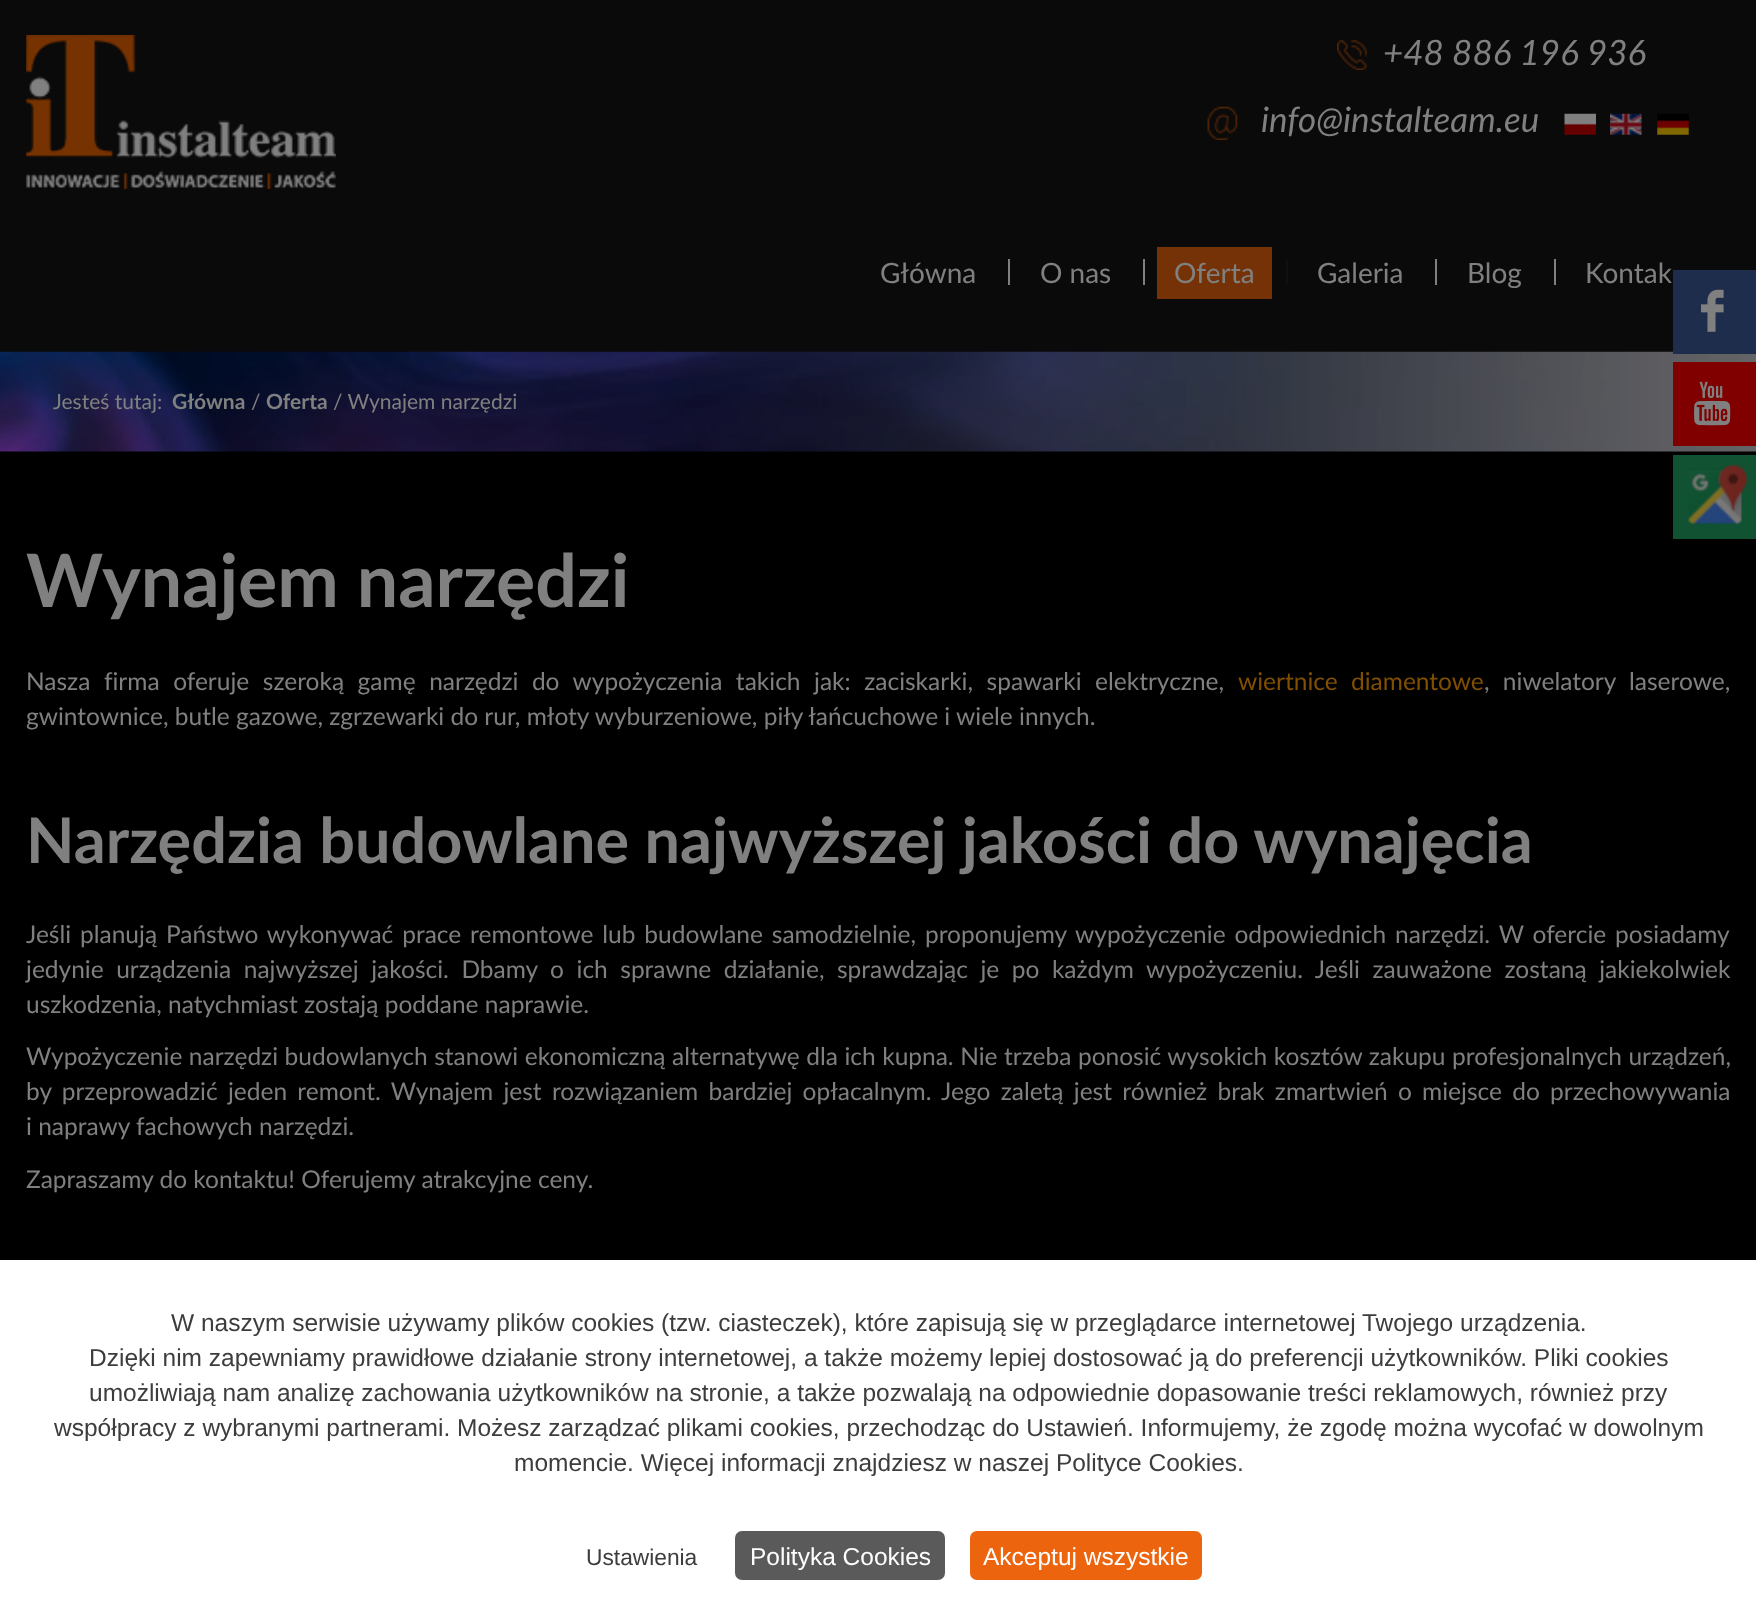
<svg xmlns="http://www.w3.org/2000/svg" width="1756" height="1617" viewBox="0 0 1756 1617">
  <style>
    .t1 { font: italic 35px Lato; fill: #808080; }
    .t2 { font: 28px Lato; fill: #808080; }
    .t3 { font: 21px Lato; fill: #808080; }
    .t4 { font: bold 21px Lato; fill: #808080; }
    .t5 { font: bold 73.5px Lato; fill: #808080; }
    .t6 { font: 24.5px Lato; fill: #808080; }
    .t7 { font: 24.5px Lato; fill: #804f00; }
    .t8 { font: bold 63px Lato; fill: #808080; }
    .t9 { font: 24.5px Liberation Sans; fill: #3d3d3d; }
    .t10 { font: 22.75px Liberation Sans; fill: #3d3d3d; }
    .t11 { font: 24.5px Liberation Sans; fill: #fff; }
  </style>
  <rect width="100%" height="100%" fill="#000"/>
  <rect x="0" y="0" width="1756" height="352" fill="#0a0a0a"/>
  <image x="26" y="35" width="310" height="154" href="images/1.png"/>
  <image x="1337" y="40" width="30" height="30" href="images/2.png"/>
  <text x="1383" y="65" class="t1">+48 886 196 936</text>
  <image x="1207" y="106" width="31" height="34" href="images/3.png"/>
  <text x="1261" y="132" class="t1">info@instalteam.eu</text>
  <image x="1564" y="113" width="32" height="22" href="images/4.png"/>
  <image x="1610" y="113" width="32" height="22" href="images/5.png"/>
  <image x="1657" y="113" width="32" height="22" href="images/6.png"/>
  <text x="880" y="283" class="t2">Główna</text>
  <rect x="1008" y="259" width="2" height="26" fill="#808080"/>
  <text x="1040" y="283" class="t2">O nas</text>
  <rect x="1143" y="259" width="2" height="26" fill="#808080"/>
  <rect x="1157" y="247" width="115" height="52" fill="#763207"/>
  <text x="1174" y="283" class="t2">Oferta</text>
  <rect x="1286" y="259" width="2" height="26" fill="#101010"/>
  <text x="1317" y="283" class="t2">Galeria</text>
  <rect x="1435" y="259" width="2" height="26" fill="#808080"/>
  <text x="1467" y="283" class="t2">Blog</text>
  <rect x="1554" y="259" width="2" height="26" fill="#808080"/>
  <text x="1585" y="283" class="t2">Kontak</text>
  <image x="0" y="351" width="1756" height="101" href="images/7.png"/>
  <text x="53" y="409" class="t3">Jesteś tutaj:</text>
  <text x="172" y="409" class="t4">Główna</text>
  <text x="251" y="409" class="t3">/</text>
  <text x="266" y="409" class="t4">Oferta</text>
  <text x="333" y="409" class="t3">/ Wynajem narzędzi</text>
  <text x="26" y="607" class="t5">Wynajem narzędzi</text>
  <text x="26" y="690" word-spacing="7.25" class="t6">Nasza firma oferuje szeroką gamę narzędzi do wypożyczenia takich jak: zaciskarki, spawarki elektryczne,</text>
  <text x="1238" y="690" word-spacing="7" class="t7">wiertnice diamentowe</text>
  <text x="1484" y="690" word-spacing="7" class="t6">, niwelatory laserowe,</text>
  <text x="26" y="725" class="t6">gwintownice, butle gazowe, zgrzewarki do rur, młoty wyburzeniowe, piły łańcuchowe i wiele innych.</text>
  <text x="26" y="863" class="t8">Narzędzia budowlane najwyższej jakości do wynajęcia</text>
  <text x="26" y="943" word-spacing="2.6" class="t6">Jeśli planują Państwo wykonywać prace remontowe lub budowlane samodzielnie, proponujemy wypożyczenie odpowiednich narzędzi. W ofercie posiadamy</text>
  <text x="26" y="978" word-spacing="6.25" class="t6">jedynie urządzenia najwyższej jakości. Dbamy o ich sprawne działanie, sprawdzając je po każdym wypożyczeniu. Jeśli zauważone zostaną jakiekolwiek</text>
  <text x="26" y="1013" class="t6">uszkodzenia, natychmiast zostają poddane naprawie.</text>
  <text x="26" y="1065" word-spacing="0.25" class="t6">Wypożyczenie narzędzi budowlanych stanowi ekonomiczną alternatywę dla ich kupna. Nie trzeba ponosić wysokich kosztów zakupu profesjonalnych urządzeń,</text>
  <text x="26" y="1100" word-spacing="4" class="t6">by przeprowadzić jeden remont. Wynajem jest rozwiązaniem bardziej opłacalnym. Jego zaletą jest również brak zmartwień o miejsce do przechowywania</text>
  <text x="26" y="1135" class="t6">i naprawy fachowych narzędzi.</text>
  <text x="26" y="1188" class="t6">Zapraszamy do kontaktu! Oferujemy atrakcyjne ceny.</text>
  <rect x="1673" y="270" width="83" height="84" fill="#1e2d4c"/>
  <image x="1701" y="289" width="23" height="43" href="images/8.png"/>
  <rect x="1673" y="362" width="83" height="84" fill="#800000"/>
  <image x="1694" y="381" width="37" height="45" href="images/9.png"/>
  <rect x="1673" y="455" width="83" height="84" fill="#105232"/>
  <image x="1687" y="463" width="62" height="62" href="images/10.png"/>
  <rect x="0" y="1260" width="1756" height="357" fill="#fff"/>
  <text x="171" y="1331" class="t9">W naszym serwisie używamy plików cookies (tzw. ciasteczek), które zapisują się w przeglądarce internetowej Twojego urządzenia.</text>
  <text x="89" y="1366" class="t9">Dzięki nim zapewniamy prawidłowe działanie strony internetowej, a także możemy lepiej dostosować ją do preferencji użytkowników. Pliki cookies</text>
  <text x="89" y="1401" class="t9">umożliwiają nam analizę zachowania użytkowników na stronie, a także pozwalają na odpowiednie dopasowanie treści reklamowych, również przy</text>
  <text x="54" y="1436" class="t9">współpracy z wybranymi partnerami. Możesz zarządzać plikami cookies, przechodząc do Ustawień. Informujemy, że zgodę można wycofać w dowolnym</text>
  <text x="514" y="1471" class="t9">momencie. Więcej informacji znajdziesz w naszej Polityce Cookies.</text>
  <text x="586" y="1565" class="t10">Ustawienia</text>
  <rect x="735" y="1531" width="210" height="49" rx="7" fill="#5a5a5a"/>
  <text x="750" y="1565" class="t11">Polityka Cookies</text>
  <rect x="970" y="1531" width="232" height="49" rx="7" fill="#ec640e"/>
  <text x="983" y="1565" class="t11">Akceptuj wszystkie</text>
</svg>
